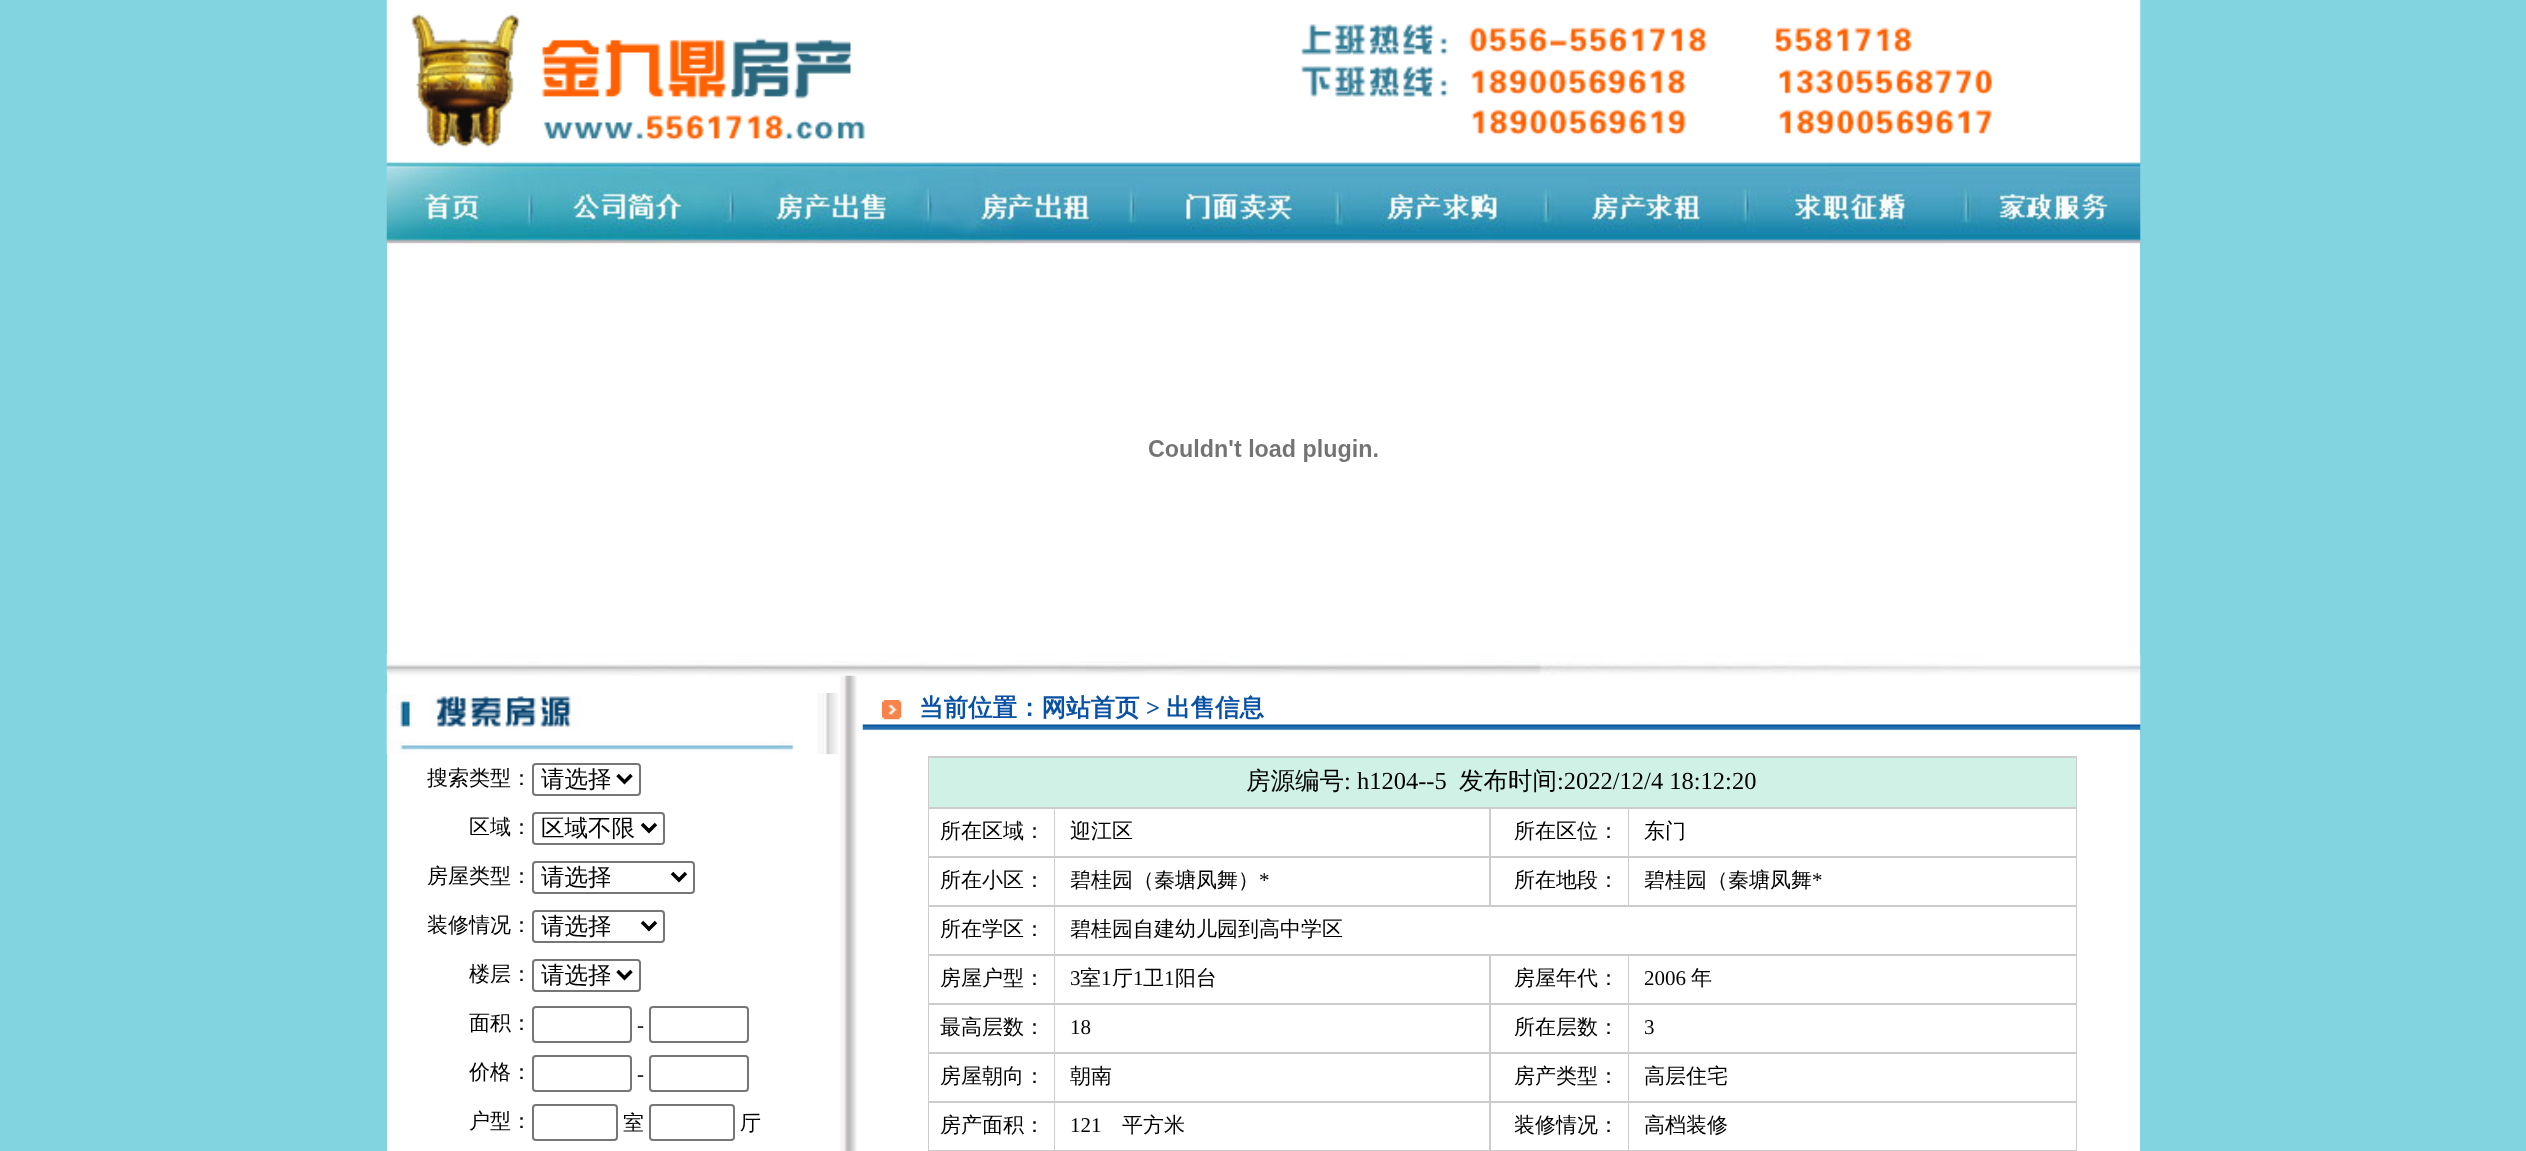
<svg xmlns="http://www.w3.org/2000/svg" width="2526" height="1151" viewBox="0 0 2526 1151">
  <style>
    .t1 { font: 500 21px WenQuanYi Zen Hei; fill: #000; }
    .t2 { font: 500 23.5px WenQuanYi Zen Hei; fill: #000; }
    .t3 { font: 21px Liberation Serif; fill: #000; }
    .t4 { font: bold 24.5px WenQuanYi Zen Hei; fill: #0951a3; }
    .t5 { font: bold 24.5px Liberation Serif; fill: #0951a3; }
    .t6 { font: 500 24.5px WenQuanYi Zen Hei; fill: #000; }
    .t7 { font: 24.5px Liberation Serif; fill: #000; }
  </style>
  <rect width="100%" height="100%" fill="#82d4e0"/>
  <rect x="387" y="243" width="1753" height="908" fill="#fff"/>
  <image x="386" y="0" width="1755" height="161" href="images/1.png"/>
  <image x="386" y="161" width="1755" height="83" href="images/2.png"/>
  <image x="1149" y="439" width="229" height="23" href="images/3.png"/>
  <image x="840" y="675" width="17" height="476" href="images/6.png"/>
  <image x="862" y="675" width="1279" height="55" href="images/7.png"/>
  <image x="386" y="654" width="1755" height="22" href="images/4.png"/>
  <image x="386" y="693" width="452" height="62" href="images/5.png"/>
  <text x="427" y="785" class="t1">搜索类型：</text>
  <rect x="533" y="764" width="107" height="31" rx="3" fill="none" stroke="#767676" stroke-width="2"/>
  <path d="M617.5 775L624.5 782L631.5 775" fill="none" stroke="#000" stroke-width="3.5"/>
  <text x="541" y="787" class="t2">请选择</text>
  <text x="469" y="834" class="t1">区域：</text>
  <rect x="533" y="813" width="131" height="31" rx="3" fill="none" stroke="#767676" stroke-width="2"/>
  <path d="M642 824L649 831L656 824" fill="none" stroke="#000" stroke-width="3.5"/>
  <text x="541" y="836" class="t2">区域不限</text>
  <text x="427" y="883" class="t1">房屋类型：</text>
  <rect x="533" y="862" width="161" height="31" rx="3" fill="none" stroke="#767676" stroke-width="2"/>
  <path d="M672 873L679 880L686 873" fill="none" stroke="#000" stroke-width="3.5"/>
  <text x="541" y="885" class="t2">请选择</text>
  <text x="427" y="932" class="t1">装修情况：</text>
  <rect x="533" y="911" width="131" height="31" rx="3" fill="none" stroke="#767676" stroke-width="2"/>
  <path d="M642 922L649 929L656 922" fill="none" stroke="#000" stroke-width="3.5"/>
  <text x="541" y="934" class="t2">请选择</text>
  <text x="469" y="981" class="t1">楼层：</text>
  <rect x="533" y="960" width="107" height="31" rx="3" fill="none" stroke="#767676" stroke-width="2"/>
  <path d="M617.5 971L624.5 978L631.5 971" fill="none" stroke="#000" stroke-width="3.5"/>
  <text x="541" y="983" class="t2">请选择</text>
  <text x="469" y="1030" class="t1">面积：</text>
  <rect x="533" y="1007" width="98" height="35" rx="3" fill="none" stroke="#767676" stroke-width="2"/>
  <text x="637" y="1032" class="t3">-</text>
  <rect x="650" y="1007" width="98" height="35" rx="3" fill="none" stroke="#767676" stroke-width="2"/>
  <text x="469" y="1079" class="t1">价格：</text>
  <rect x="533" y="1056" width="98" height="35" rx="3" fill="none" stroke="#767676" stroke-width="2"/>
  <text x="637" y="1081" class="t3">-</text>
  <rect x="650" y="1056" width="98" height="35" rx="3" fill="none" stroke="#767676" stroke-width="2"/>
  <text x="469" y="1128" class="t1">户型：</text>
  <rect x="533" y="1105" width="84" height="35" rx="3" fill="none" stroke="#767676" stroke-width="2"/>
  <text x="623" y="1130" class="t1">室</text>
  <rect x="650" y="1105" width="84" height="35" rx="3" fill="none" stroke="#767676" stroke-width="2"/>
  <text x="740" y="1130" class="t1">厅</text>
  <image x="882" y="700" width="20" height="20" href="images/8.png"/>
  <text x="919" y="716" class="t4">当前位置：网站首页</text>
  <text x="1146" y="716" class="t5">&gt;</text>
  <text x="1166" y="716" class="t4">出售信息</text>
  <rect x="928" y="756" width="1149" height="395" fill="#ccc"/>
  <rect x="929" y="758" width="1147" height="49" fill="#cff1e6"/>
  <text x="1246" y="789" class="t6">房源编号</text>
  <text x="1344" y="789" class="t7">: h1204--5</text>
  <text x="1459" y="789" class="t6">发布时间</text>
  <text x="1557" y="789" class="t7">:2022/12/4 18:12:20</text>
  <rect x="929" y="809" width="125" height="47" fill="#fff"/>
  <text x="940" y="838" class="t1">所在区域：</text>
  <rect x="1055" y="809" width="434" height="47" fill="#fff"/>
  <text x="1070" y="838" class="t1">迎江区</text>
  <rect x="1491" y="809" width="137" height="47" fill="#fff"/>
  <text x="1514" y="838" class="t1">所在区位：</text>
  <rect x="1629" y="809" width="447" height="47" fill="#fff"/>
  <text x="1644" y="838" class="t1">东门</text>
  <rect x="929" y="858" width="125" height="47" fill="#fff"/>
  <text x="940" y="887" class="t1">所在小区：</text>
  <rect x="1055" y="858" width="434" height="47" fill="#fff"/>
  <text x="1070" y="887" class="t1">碧桂园（秦塘凤舞）</text>
  <text x="1259" y="887" class="t3">*</text>
  <rect x="1491" y="858" width="137" height="47" fill="#fff"/>
  <text x="1514" y="887" class="t1">所在地段：</text>
  <rect x="1629" y="858" width="447" height="47" fill="#fff"/>
  <text x="1644" y="887" class="t1">碧桂园（秦塘凤舞</text>
  <text x="1812" y="887" class="t3">*</text>
  <rect x="929" y="907" width="125" height="47" fill="#fff"/>
  <text x="940" y="936" class="t1">所在学区：</text>
  <rect x="1055" y="907" width="1021" height="47" fill="#fff"/>
  <text x="1070" y="936" class="t1">碧桂园自建幼儿园到高中学区</text>
  <rect x="929" y="956" width="125" height="47" fill="#fff"/>
  <text x="940" y="985" class="t1">房屋户型：</text>
  <rect x="1055" y="956" width="434" height="47" fill="#fff"/>
  <text x="1070" y="985" class="t3">3</text>
  <text x="1080" y="985" class="t1">室</text>
  <text x="1101" y="985" class="t3">1</text>
  <text x="1112" y="985" class="t1">厅</text>
  <text x="1133" y="985" class="t3">1</text>
  <text x="1143" y="985" class="t1">卫</text>
  <text x="1164" y="985" class="t3">1</text>
  <text x="1175" y="985" class="t1">阳台</text>
  <rect x="1491" y="956" width="137" height="47" fill="#fff"/>
  <text x="1514" y="985" class="t1">房屋年代：</text>
  <rect x="1629" y="956" width="447" height="47" fill="#fff"/>
  <text x="1644" y="985" class="t3">2006</text>
  <text x="1691" y="985" class="t1">年</text>
  <rect x="929" y="1005" width="125" height="47" fill="#fff"/>
  <text x="940" y="1034" class="t1">最高层数：</text>
  <rect x="1055" y="1005" width="434" height="47" fill="#fff"/>
  <text x="1070" y="1034" class="t3">18</text>
  <rect x="1491" y="1005" width="137" height="47" fill="#fff"/>
  <text x="1514" y="1034" class="t1">所在层数：</text>
  <rect x="1629" y="1005" width="447" height="47" fill="#fff"/>
  <text x="1644" y="1034" class="t3">3</text>
  <rect x="929" y="1054" width="125" height="47" fill="#fff"/>
  <text x="940" y="1083" class="t1">房屋朝向：</text>
  <rect x="1055" y="1054" width="434" height="47" fill="#fff"/>
  <text x="1070" y="1083" class="t1">朝南</text>
  <rect x="1491" y="1054" width="137" height="47" fill="#fff"/>
  <text x="1514" y="1083" class="t1">房产类型：</text>
  <rect x="1629" y="1054" width="447" height="47" fill="#fff"/>
  <text x="1644" y="1083" class="t1">高层住宅</text>
  <rect x="929" y="1103" width="125" height="47" fill="#fff"/>
  <text x="940" y="1132" class="t1">房产面积：</text>
  <rect x="1055" y="1103" width="434" height="47" fill="#fff"/>
  <text x="1070" y="1132" class="t3">121</text>
  <text x="1122" y="1132" class="t1">平方米</text>
  <rect x="1491" y="1103" width="137" height="47" fill="#fff"/>
  <text x="1514" y="1132" class="t1">装修情况：</text>
  <rect x="1629" y="1103" width="447" height="47" fill="#fff"/>
  <text x="1644" y="1132" class="t1">高档装修</text>
</svg>
